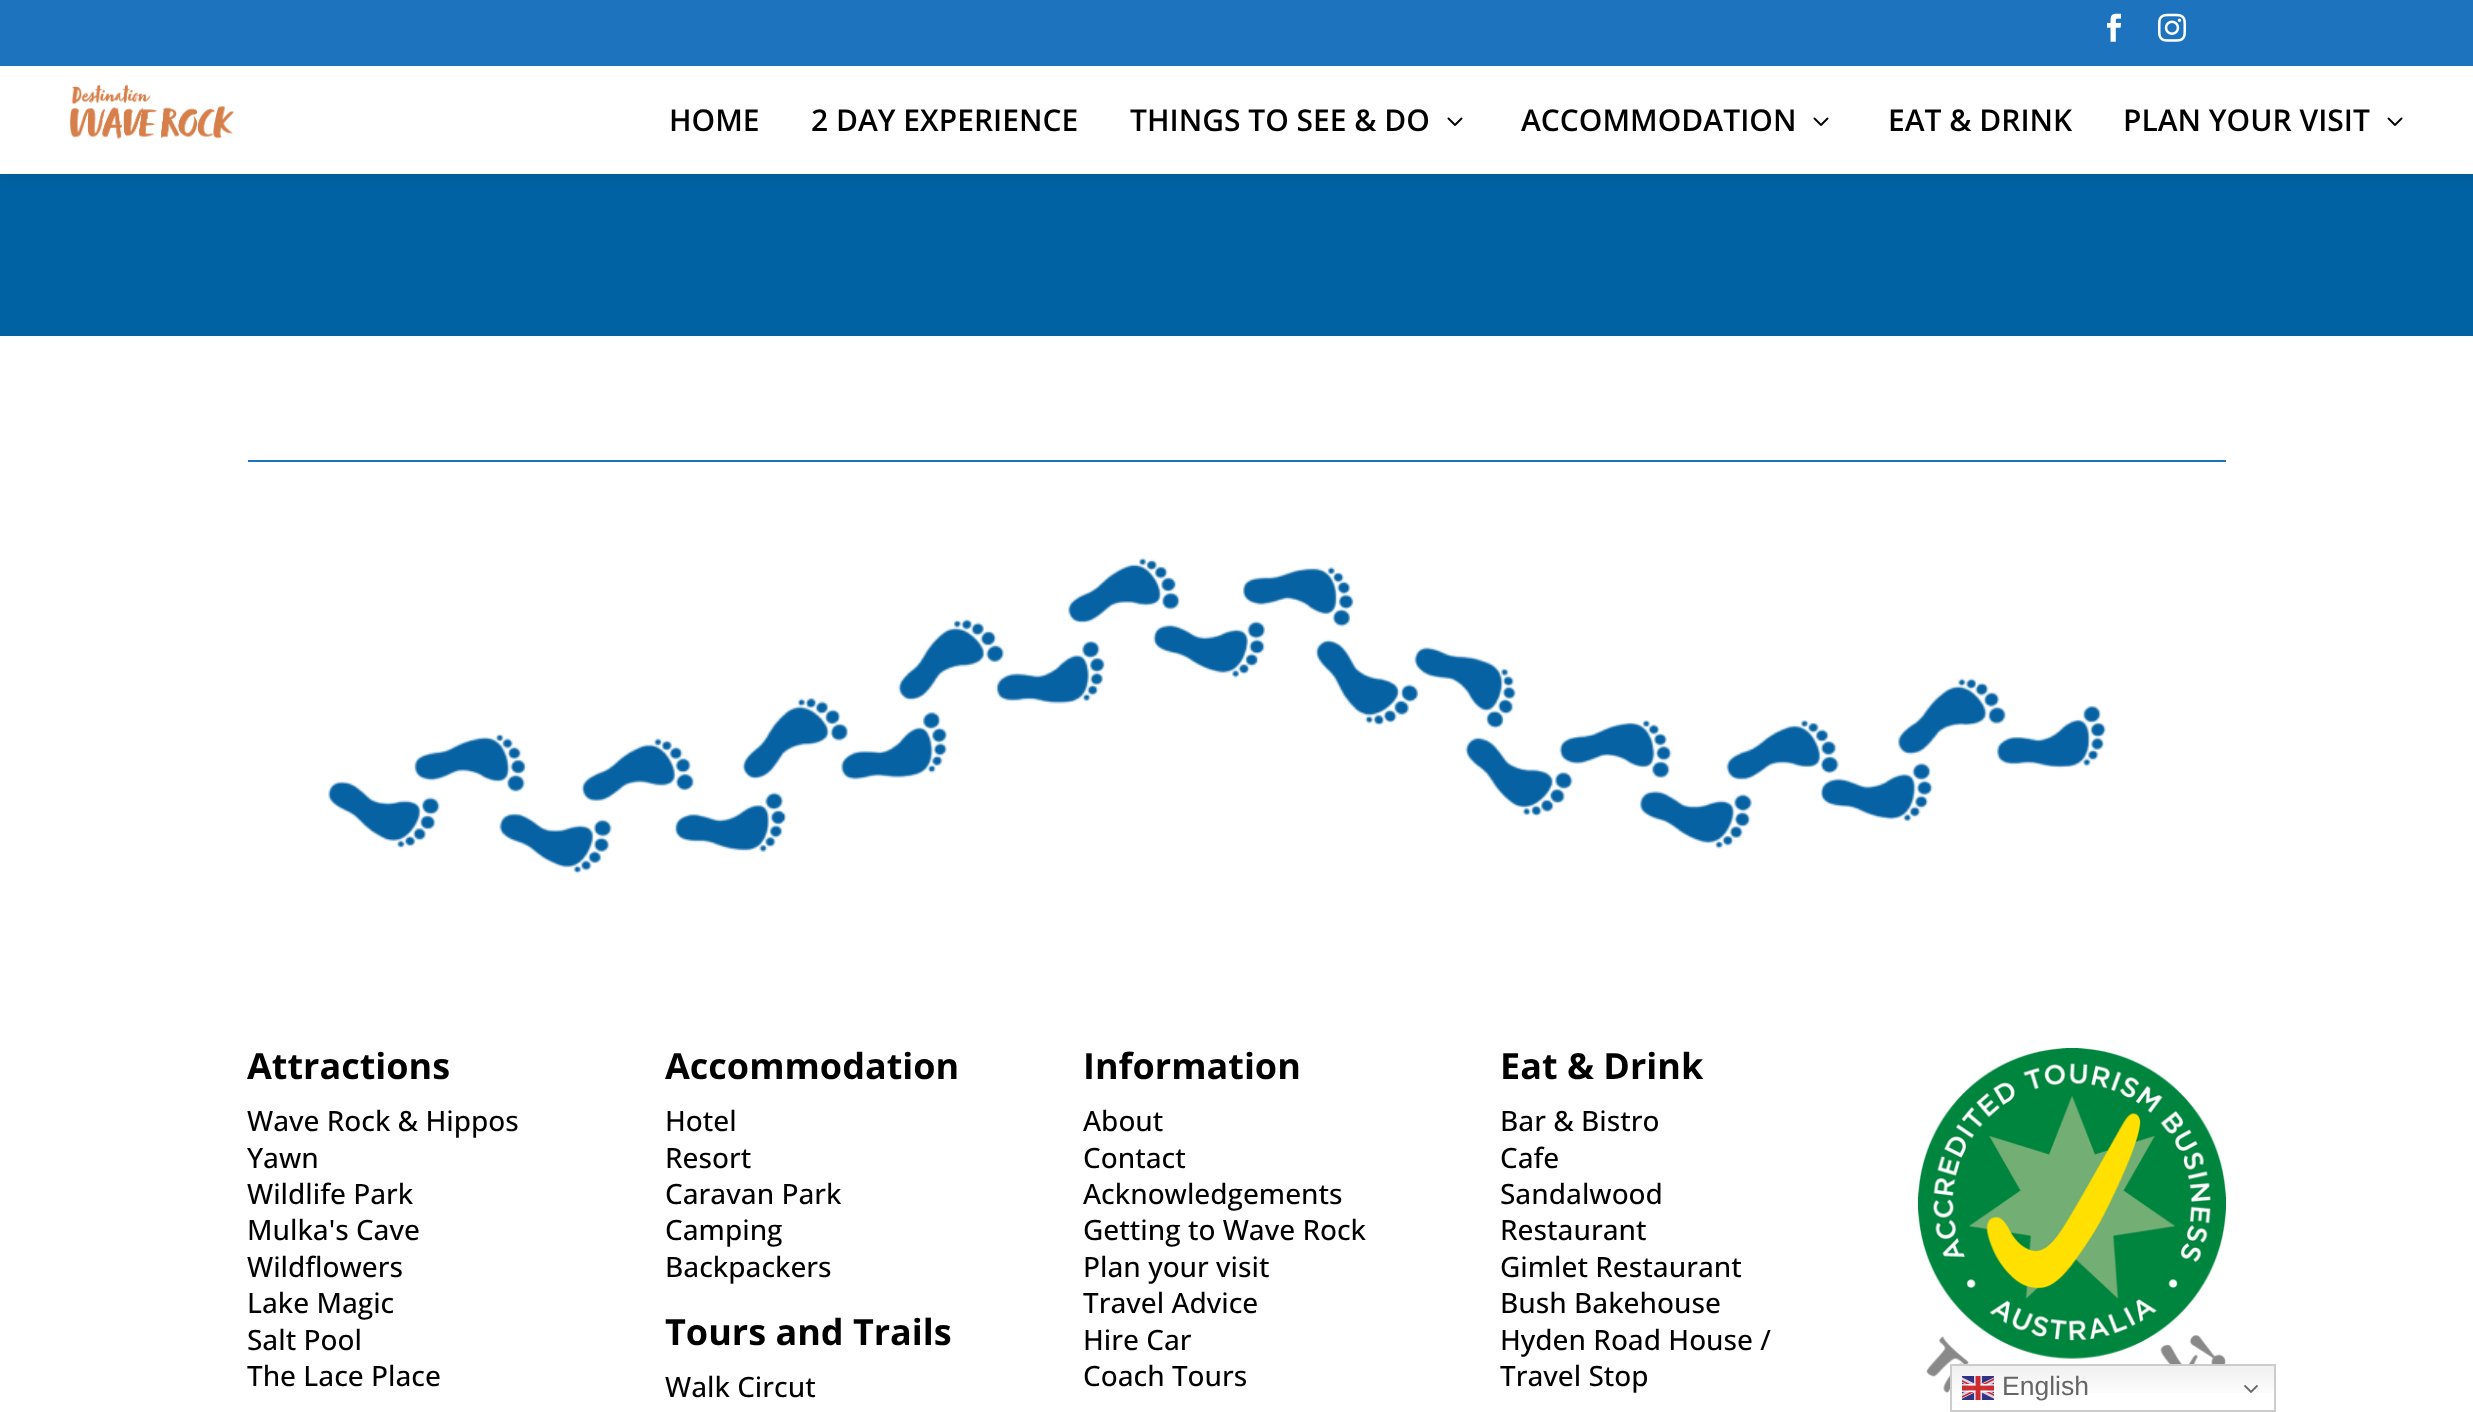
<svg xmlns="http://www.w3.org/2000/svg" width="2473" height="1412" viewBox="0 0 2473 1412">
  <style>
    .t1 { font: 600 30px Open Sans; fill: #000; }
    .t2 { font: bold 36px Open Sans; fill: #000; }
    .t3 { font: 500 28px Open Sans; fill: #000; }
    .t4 { font: 26.5px Liberation Sans; fill: #666; }
  </style>
  <defs>
    <linearGradient id="g1" gradientUnits="userSpaceOnUse" x1="2113" y1="1364" x2="2113" y2="1412"><stop offset="0" stop-color="#efefef"/><stop offset="0.7" stop-color="#fff"/></linearGradient>
  </defs>
  <rect width="100%" height="100%" fill="#0062a3"/>
  <rect x="0" y="66" width="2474" height="108" fill="#0000001a" filter="blur(7px)"/>
  <rect x="0" y="0" width="2473" height="66" fill="#1e73be"/>
  <image x="2107" y="13" width="15" height="29" href="images/1.png"/>
  <image x="2158" y="13" width="28" height="29" href="images/2.png"/>
  <rect x="0" y="66" width="2473" height="108" fill="#fff"/>
  <image x="69" y="84" width="165" height="56" href="images/3.png"/>
  <text x="669" y="131" class="t1">HOME</text>
  <text x="811" y="131" class="t1">2 DAY EXPERIENCE</text>
  <text x="1130" y="131" class="t1">THINGS TO SEE &amp; DO</text>
  <image x="1447" y="117" width="16" height="9" href="images/4.png"/>
  <text x="1521" y="131" class="t1">ACCOMMODATION</text>
  <image x="1813" y="117" width="16" height="9" href="images/4.png"/>
  <text x="1888" y="131" class="t1">EAT &amp; DRINK</text>
  <text x="2123" y="131" class="t1">PLAN YOUR VISIT</text>
  <image x="2387" y="117" width="16" height="9" href="images/4.png"/>
  <rect x="0" y="336" width="2473" height="1076" fill="#fff"/>
  <rect x="248" y="460" width="1978" height="2" fill="#1e73be"/>
  <image x="328" y="557" width="1778" height="317" href="images/5.png"/>
  <text x="247" y="1079" class="t2">Attractions</text>
  <text x="247" y="1131" class="t3">Wave Rock &amp; Hippos</text>
  <text x="247" y="1168" class="t3">Yawn</text>
  <text x="247" y="1204" class="t3">Wildlife Park</text>
  <text x="247" y="1240" class="t3">Mulka's Cave</text>
  <text x="247" y="1277" class="t3">Wildflowers</text>
  <text x="247" y="1313" class="t3">Lake Magic</text>
  <text x="247" y="1350" class="t3">Salt Pool</text>
  <text x="247" y="1386" class="t3">The Lace Place</text>
  <text x="665" y="1079" class="t2">Accommodation</text>
  <text x="665" y="1131" class="t3">Hotel</text>
  <text x="665" y="1168" class="t3">Resort</text>
  <text x="665" y="1204" class="t3">Caravan Park</text>
  <text x="665" y="1240" class="t3">Camping</text>
  <text x="665" y="1277" class="t3">Backpackers</text>
  <text x="665" y="1345" class="t2">Tours and Trails</text>
  <text x="665" y="1397" class="t3">Walk Circut</text>
  <text x="1083" y="1079" class="t2">Information</text>
  <text x="1083" y="1131" class="t3">About</text>
  <text x="1083" y="1168" class="t3">Contact</text>
  <text x="1083" y="1204" class="t3">Acknowledgements</text>
  <text x="1083" y="1240" class="t3">Getting to Wave Rock</text>
  <text x="1083" y="1277" class="t3">Plan your visit</text>
  <text x="1083" y="1313" class="t3">Travel Advice</text>
  <text x="1083" y="1350" class="t3">Hire Car</text>
  <text x="1083" y="1386" class="t3">Coach Tours</text>
  <text x="1500" y="1079" class="t2">Eat &amp; Drink</text>
  <text x="1500" y="1131" class="t3">Bar &amp; Bistro</text>
  <text x="1500" y="1168" class="t3">Cafe</text>
  <text x="1500" y="1204" class="t3">Sandalwood</text>
  <text x="1500" y="1240" class="t3">Restaurant</text>
  <text x="1500" y="1277" class="t3">Gimlet Restaurant</text>
  <text x="1500" y="1313" class="t3">Bush Bakehouse</text>
  <text x="1500" y="1350" class="t3">Hyden Road House /</text>
  <text x="1500" y="1386" class="t3">Travel Stop</text>
  <image x="1918" y="1048" width="308" height="345" href="images/6.png"/>
  <rect x="1952" y="1366" width="322" height="27" fill="url(#g1)"/>
  <rect x="1951" y="1365" width="324" height="46" fill="none" stroke="#ccc" stroke-width="2"/>
  <image x="1962" y="1376" width="32" height="24" href="images/7.png"/>
  <text x="2002" y="1395" class="t4">English</text>
  <image x="2244" y="1385" width="14" height="8" href="images/8.png"/>
</svg>
